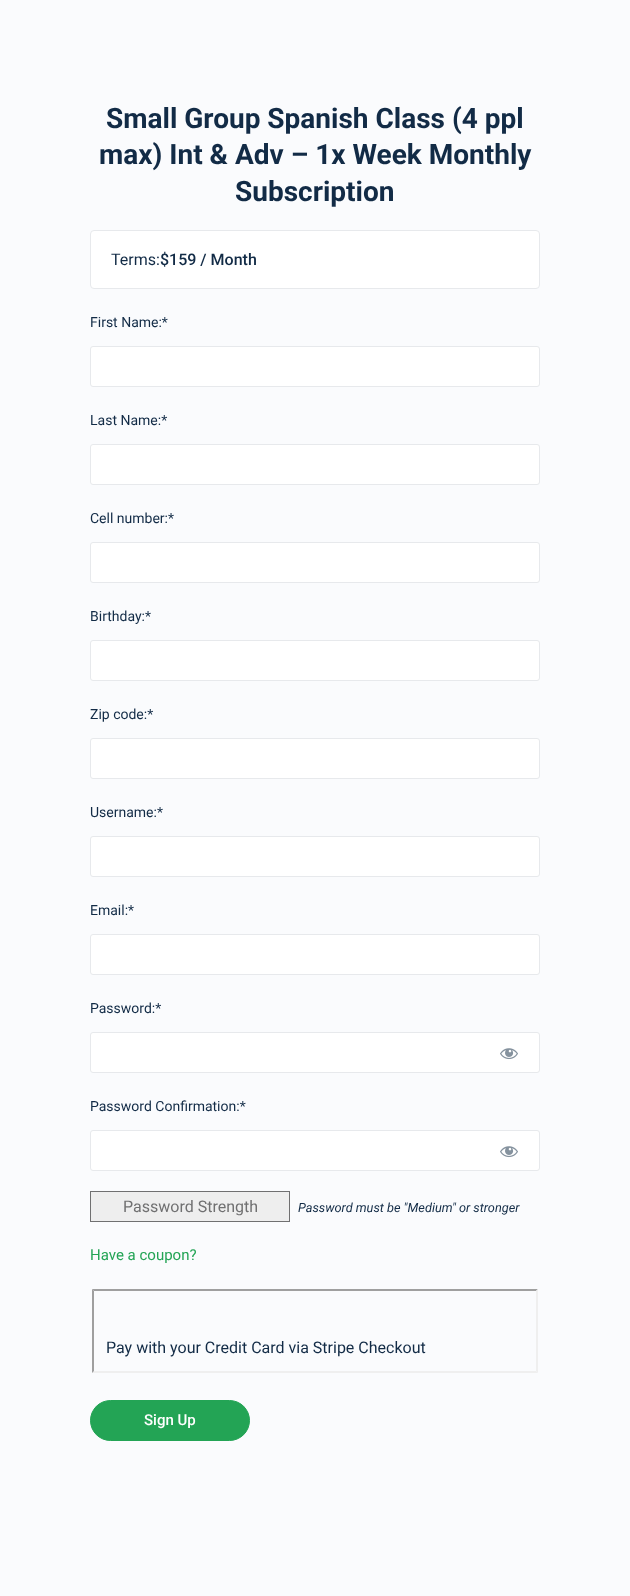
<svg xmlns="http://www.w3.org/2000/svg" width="630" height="1596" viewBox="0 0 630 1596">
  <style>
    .t1 { font: bold 28px Roboto; fill: #122b46; }
    .t2 { font: 16px Roboto; fill: #122b46; }
    .t3 { font: 500 16px Roboto; fill: #122b46; }
    .t4 { font: 14px Roboto; fill: #122b46; }
    .t5 { font: 16px Roboto; fill: #707071; }
    .t6 { font: italic 12.75px Roboto; fill: #122b46; }
    .t7 { font: 15px Roboto; fill: #23a455; }
    .t8 { font: 500 15px Roboto; fill: #fff; }
  </style>
  <rect width="100%" height="100%" fill="#fafbfd"/>
  <text x="106" y="128" class="t1">Small Group Spanish Class (4 ppl</text>
  <text x="99" y="164" class="t1">max) Int &amp; Adv – 1x Week Monthly</text>
  <text x="235" y="201" class="t1">Subscription</text>
  <rect x="90.5" y="230.5" width="449" height="58" rx="3.5" fill="#fff" stroke="#e7e9ec"/>
  <text x="111" y="265" class="t2">Terms:</text>
  <text x="160" y="265" class="t3">$159 / Month</text>
  <text x="90" y="327" class="t4">First Name:*</text>
  <rect x="90.5" y="346.5" width="449" height="40" rx="2.5" fill="#fff" stroke="#e7e9ec"/>
  <text x="90" y="425" class="t4">Last Name:*</text>
  <rect x="90.5" y="444.5" width="449" height="40" rx="2.5" fill="#fff" stroke="#e7e9ec"/>
  <text x="90" y="523" class="t4">Cell number:*</text>
  <rect x="90.5" y="542.5" width="449" height="40" rx="2.5" fill="#fff" stroke="#e7e9ec"/>
  <text x="90" y="621" class="t4">Birthday:*</text>
  <rect x="90.5" y="640.5" width="449" height="40" rx="2.5" fill="#fff" stroke="#e7e9ec"/>
  <text x="90" y="719" class="t4">Zip code:*</text>
  <rect x="90.5" y="738.5" width="449" height="40" rx="2.5" fill="#fff" stroke="#e7e9ec"/>
  <text x="90" y="817" class="t4">Username:*</text>
  <rect x="90.5" y="836.5" width="449" height="40" rx="2.5" fill="#fff" stroke="#e7e9ec"/>
  <text x="90" y="915" class="t4">Email:*</text>
  <rect x="90.5" y="934.5" width="449" height="40" rx="2.5" fill="#fff" stroke="#e7e9ec"/>
  <text x="90" y="1013" class="t4">Password:*</text>
  <rect x="90.5" y="1032.5" width="449" height="40" rx="2.5" fill="#fff" stroke="#e7e9ec"/>
  <image x="500" y="1048" width="18" height="12" href="images/1.png"/>
  <text x="90" y="1111" class="t4">Password Confirmation:*</text>
  <rect x="90.5" y="1130.5" width="449" height="40" rx="2.5" fill="#fff" stroke="#e7e9ec"/>
  <image x="500" y="1146" width="18" height="12" href="images/1.png"/>
  <rect x="90.5" y="1191.5" width="199" height="30" fill="#eee" stroke="#707071"/>
  <text x="123" y="1212" class="t5">Password Strength</text>
  <text x="298" y="1212" class="t6">Password must be "Medium" or stronger</text>
  <text x="90" y="1260" class="t7">Have a coupon?</text>
  <path d="M92 1289H538L536 1291H94Z" fill="#9f9f9f"/>
  <path d="M538 1289V1373L536 1371V1291Z" fill="#efefef"/>
  <path d="M538 1373H92L94 1371H536Z" fill="#efefef"/>
  <path d="M92 1373V1289L94 1291V1371Z" fill="#9f9f9f"/>
  <text x="106" y="1353" class="t2">Pay with your Credit Card via Stripe Checkout</text>
  <rect x="90.5" y="1400.5" width="159" height="40" rx="20" fill="#23a455" stroke="#23a455"/>
  <text x="144" y="1425" class="t8">Sign Up</text>
</svg>
